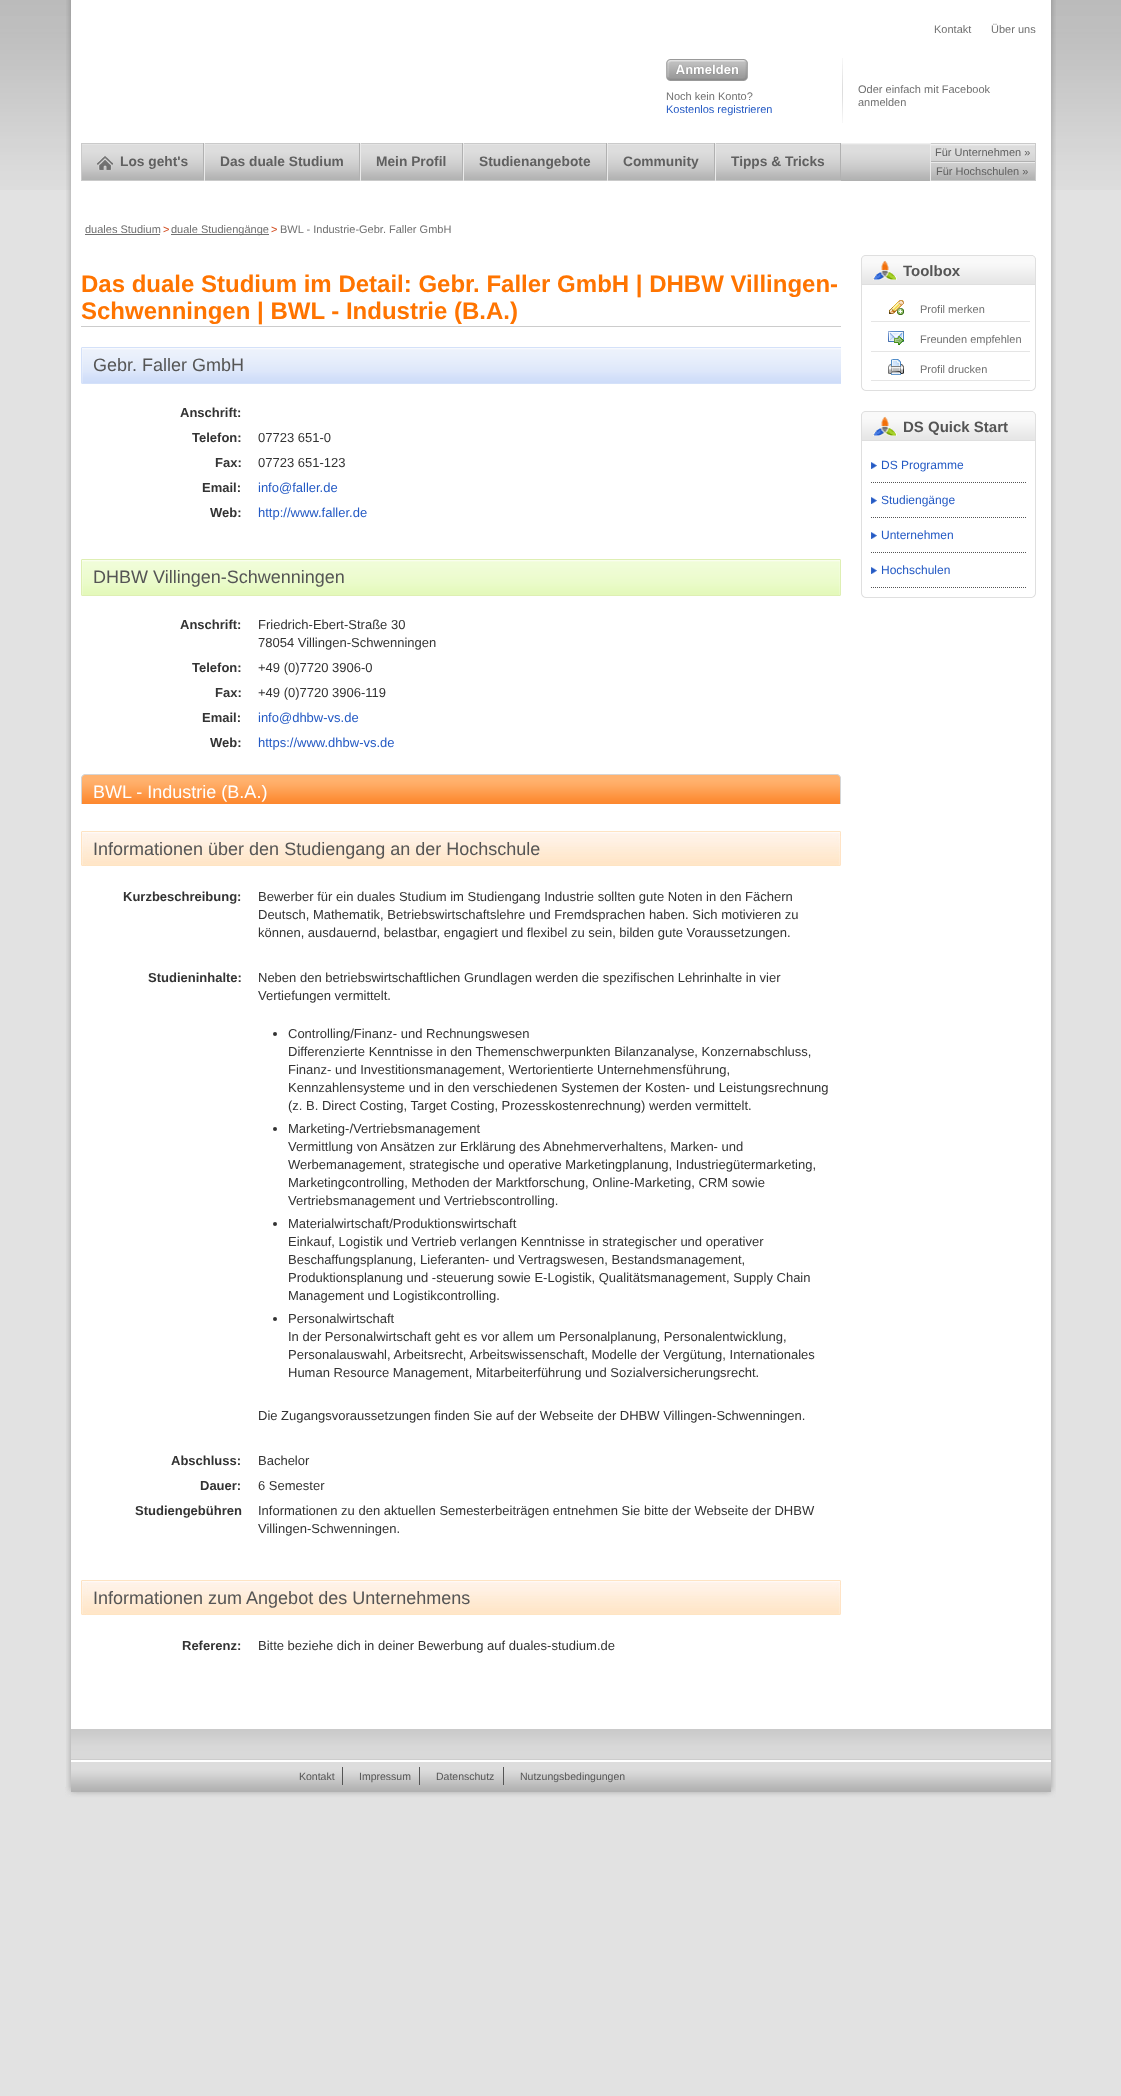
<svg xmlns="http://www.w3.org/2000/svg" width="1121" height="2096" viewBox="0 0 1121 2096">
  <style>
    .t1 { font: 11px Liberation Sans; fill: #707070; }
    .t2 { font: 11px Liberation Sans; fill: #2359c4; }
    .t3 { font: bold 13.75px Liberation Sans; fill: #606060; }
    .t4 { font: 11px Liberation Sans; fill: #606060; }
    .t5 { font: 11px Liberation Sans; fill: #d24f22; }
    .t6 { font: bold 24px Liberation Sans; fill: #ff7400; }
    .t7 { font: 18px Liberation Sans; fill: #555; }
    .t8 { font: bold 13px Liberation Sans; fill: #333; }
    .t9 { font: 13px Liberation Sans; fill: #333; }
    .t10 { font: 13px Liberation Sans; fill: #2359c4; }
    .t11 { font: 18px Liberation Sans; fill: #fff; }
    .t12 { font: bold 15px Liberation Sans; fill: #555; }
    .t13 { font: 12px Liberation Sans; fill: #2359c4; }
    .t14 { font: 10.5px Liberation Sans; fill: #555; }
  </style>
  <rect width="100%" height="100%" fill="#e2e2e2"/>
  <image x="0" y="0" width="1121" height="190" href="images/1.png"/>
  <image x="66" y="0" width="990" height="1787" href="images/2.png"/>
  <image x="65" y="1787" width="991" height="12" href="images/3.png"/>
  <text x="934" y="33" class="t1">Kontakt</text>
  <text x="991" y="33" class="t1">Über uns</text>
  <image x="842" y="58" width="1" height="65" href="images/4.png"/>
  <image x="666" y="59" width="82" height="22" href="images/5.png"/>
  <text x="666" y="100" class="t1">Noch kein Konto?</text>
  <text x="666" y="113" class="t2">Kostenlos registrieren</text>
  <text x="858" y="93" class="t1">Oder einfach mit Facebook</text>
  <text x="858" y="106" class="t1">anmelden</text>
  <image x="82" y="143" width="953" height="38" href="images/6.png"/>
  <rect x="81" y="143" width="760" height="1" fill="#cacaca"/>
  <rect x="203" y="143" width="1" height="38" fill="#b1b1b1"/>
  <rect x="81" y="180" width="123" height="1" fill="#cacaca"/>
  <rect x="81" y="143" width="1" height="38" fill="#cacaca"/>
  <image x="97" y="156" width="16" height="14" href="images/7.png"/>
  <text x="120" y="166" class="t3">Los geht's</text>
  <rect x="359" y="143" width="1" height="38" fill="#b1b1b1"/>
  <rect x="204" y="180" width="156" height="1" fill="#cacaca"/>
  <rect x="204" y="143" width="1" height="38" fill="#eaeaea"/>
  <text x="220" y="166" class="t3">Das duale Studium</text>
  <rect x="462" y="143" width="1" height="38" fill="#b1b1b1"/>
  <rect x="360" y="180" width="103" height="1" fill="#cacaca"/>
  <rect x="360" y="143" width="1" height="38" fill="#eaeaea"/>
  <text x="376" y="166" class="t3">Mein Profil</text>
  <rect x="606" y="143" width="1" height="38" fill="#b1b1b1"/>
  <rect x="463" y="180" width="144" height="1" fill="#cacaca"/>
  <rect x="463" y="143" width="1" height="38" fill="#eaeaea"/>
  <text x="479" y="166" class="t3">Studienangebote</text>
  <rect x="714" y="143" width="1" height="38" fill="#b1b1b1"/>
  <rect x="607" y="180" width="108" height="1" fill="#cacaca"/>
  <rect x="607" y="143" width="1" height="38" fill="#eaeaea"/>
  <text x="623" y="166" class="t3">Community</text>
  <rect x="840" y="143" width="1" height="38" fill="#b1b1b1"/>
  <rect x="715" y="180" width="126" height="1" fill="#cacaca"/>
  <rect x="715" y="143" width="1" height="38" fill="#eaeaea"/>
  <text x="731" y="166" class="t3">Tipps &amp; Tricks</text>
  <image x="931" y="144" width="104" height="2" href="images/8.png"/>
  <rect x="930" y="143" width="106" height="1" fill="#cacaca"/>
  <rect x="1035" y="143" width="1" height="38" fill="#cacaca"/>
  <rect x="930" y="180" width="106" height="1" fill="#cacaca"/>
  <rect x="930" y="143" width="1" height="38" fill="#eaeaea"/>
  <rect x="931" y="161" width="104" height="1" fill="#b1b1b1"/>
  <text x="935" y="156" class="t4">Für Unternehmen »</text>
  <rect x="931" y="162" width="104" height="1" fill="#eaeaea"/>
  <text x="936" y="175" class="t4">Für Hochschulen »</text>
  <text x="85" y="233" class="t1">duales Studium</text>
  <rect x="85" y="234" width="75" height="1" fill="#707070"/>
  <text x="163" y="233" class="t5">&gt;</text>
  <rect x="171" y="234" width="98" height="1" fill="#707070"/>
  <text x="171" y="233" class="t1">duale Studiengänge</text>
  <text x="271" y="233" class="t5">&gt;</text>
  <text x="280" y="233" class="t1">BWL - Industrie-Gebr. Faller GmbH</text>
  <rect x="81" y="326" width="760" height="1" fill="#ccc"/>
  <text x="81" y="292" class="t6">Das duale Studium im Detail: Gebr. Faller GmbH | DHBW Villingen-</text>
  <text x="81" y="319" class="t6">Schwenningen | BWL - Industrie (B.A.)</text>
  <image x="81" y="347" width="760" height="37" href="images/9.png"/>
  <text x="93" y="371" class="t7">Gebr. Faller GmbH</text>
  <text x="180" y="417" class="t8">Anschrift:</text>
  <text x="192" y="442" class="t8">Telefon:</text>
  <text x="258" y="442" class="t9">07723 651-0</text>
  <text x="215" y="467" class="t8">Fax:</text>
  <text x="258" y="467" class="t9">07723 651-123</text>
  <text x="202" y="492" class="t8">Email:</text>
  <text x="258" y="492" class="t10">info@faller.de</text>
  <text x="210" y="517" class="t8">Web:</text>
  <text x="258" y="517" class="t10">http://www.faller.de</text>
  <image x="81" y="559" width="760" height="37" href="images/10.png"/>
  <text x="93" y="583" class="t7">DHBW Villingen-Schwenningen</text>
  <text x="180" y="629" class="t8">Anschrift:</text>
  <text x="258" y="629" class="t9">Friedrich-Ebert-Straße 30</text>
  <text x="258" y="647" class="t9">78054 Villingen-Schwenningen</text>
  <text x="192" y="672" class="t8">Telefon:</text>
  <text x="258" y="672" class="t9">+49 (0)7720 3906-0</text>
  <text x="215" y="697" class="t8">Fax:</text>
  <text x="258" y="697" class="t9">+49 (0)7720 3906-119</text>
  <text x="202" y="722" class="t8">Email:</text>
  <text x="258" y="722" class="t10">info@dhbw-vs.de</text>
  <text x="210" y="747" class="t8">Web:</text>
  <text x="258" y="747" class="t10">https://www.dhbw-vs.de</text>
  <image x="81" y="774" width="760" height="30" href="images/11.png"/>
  <text x="93" y="798" class="t11">BWL - Industrie (B.A.)</text>
  <image x="81" y="831" width="760" height="35" href="images/12.png"/>
  <text x="93" y="855" class="t7">Informationen über den Studiengang an der Hochschule</text>
  <text x="123" y="901" class="t8">Kurzbeschreibung:</text>
  <text x="258" y="901" class="t9">Bewerber für ein duales Studium im Studiengang Industrie sollten gute Noten in den Fächern</text>
  <text x="258" y="919" class="t9">Deutsch, Mathematik, Betriebswirtschaftslehre und Fremdsprachen haben. Sich motivieren zu</text>
  <text x="258" y="937" class="t9">können, ausdauernd, belastbar, engagiert und flexibel zu sein, bilden gute Voraussetzungen.</text>
  <text x="148" y="982" class="t8">Studieninhalte:</text>
  <text x="258" y="982" class="t9">Neben den betriebswirtschaftlichen Grundlagen werden die spezifischen Lehrinhalte in vier</text>
  <text x="258" y="1000" class="t9">Vertiefungen vermittelt.</text>
  <circle cx="275" cy="1034" r="2" fill="#333"/>
  <text x="288" y="1038" class="t9">Controlling/Finanz- und Rechnungswesen</text>
  <text x="288" y="1056" class="t9">Differenzierte Kenntnisse in den Themenschwerpunkten Bilanzanalyse, Konzernabschluss,</text>
  <text x="288" y="1074" class="t9">Finanz- und Investitionsmanagement, Wertorientierte Unternehmensführung,</text>
  <text x="288" y="1092" class="t9">Kennzahlensysteme und in den verschiedenen Systemen der Kosten- und Leistungsrechnung</text>
  <text x="288" y="1110" class="t9">(z. B. Direct Costing, Target Costing, Prozesskostenrechnung) werden vermittelt.</text>
  <circle cx="275" cy="1129" r="2" fill="#333"/>
  <text x="288" y="1133" class="t9">Marketing-/Vertriebsmanagement</text>
  <text x="288" y="1151" class="t9">Vermittlung von Ansätzen zur Erklärung des Abnehmerverhaltens, Marken- und</text>
  <text x="288" y="1169" class="t9">Werbemanagement, strategische und operative Marketingplanung, Industriegütermarketing,</text>
  <text x="288" y="1187" class="t9">Marketingcontrolling, Methoden der Marktforschung, Online-Marketing, CRM sowie</text>
  <text x="288" y="1205" class="t9">Vertriebsmanagement und Vertriebscontrolling.</text>
  <circle cx="275" cy="1224" r="2" fill="#333"/>
  <text x="288" y="1228" class="t9">Materialwirtschaft/Produktionswirtschaft</text>
  <text x="288" y="1246" class="t9">Einkauf, Logistik und Vertrieb verlangen Kenntnisse in strategischer und operativer</text>
  <text x="288" y="1264" class="t9">Beschaffungsplanung, Lieferanten- und Vertragswesen, Bestandsmanagement,</text>
  <text x="288" y="1282" class="t9">Produktionsplanung und -steuerung sowie E-Logistik, Qualitätsmanagement, Supply Chain</text>
  <text x="288" y="1300" class="t9">Management und Logistikcontrolling.</text>
  <circle cx="275" cy="1319" r="2" fill="#333"/>
  <text x="288" y="1323" class="t9">Personalwirtschaft</text>
  <text x="288" y="1341" class="t9">In der Personalwirtschaft geht es vor allem um Personalplanung, Personalentwicklung,</text>
  <text x="288" y="1359" class="t9">Personalauswahl, Arbeitsrecht, Arbeitswissenschaft, Modelle der Vergütung, Internationales</text>
  <text x="288" y="1377" class="t9">Human Resource Management, Mitarbeiterführung und Sozialversicherungsrecht.</text>
  <text x="258" y="1420" class="t9">Die Zugangsvoraussetzungen finden Sie auf der Webseite der DHBW Villingen-Schwenningen.</text>
  <text x="171" y="1465" class="t8">Abschluss:</text>
  <text x="258" y="1465" class="t9">Bachelor</text>
  <text x="200" y="1490" class="t8">Dauer:</text>
  <text x="258" y="1490" class="t9">6 Semester</text>
  <text x="135" y="1515" class="t8">Studiengebühren</text>
  <text x="258" y="1515" class="t9">Informationen zu den aktuellen Semesterbeiträgen entnehmen Sie bitte der Webseite der DHBW</text>
  <text x="258" y="1533" class="t9">Villingen-Schwenningen.</text>
  <image x="81" y="1580" width="760" height="35" href="images/12.png"/>
  <text x="93" y="1604" class="t7">Informationen zum Angebot des Unternehmens</text>
  <text x="182" y="1650" class="t8">Referenz:</text>
  <text x="258" y="1650" class="t9">Bitte beziehe dich in deiner Bewerbung auf duales-studium.de</text>
  <image x="861" y="255" width="175" height="30" href="images/13.png"/>
  <image x="1033" y="255" width="3" height="29" href="images/14.png"/>
  <image x="873" y="260" width="24" height="20" href="images/15.png"/>
  <text x="903" y="276" class="t12">Toolbox</text>
  <rect x="1035" y="285" width="1" height="96" fill="#dfdfdf"/>
  <rect x="861" y="285" width="1" height="96" fill="#dfdfdf"/>
  <image x="889" y="300" width="15" height="15" href="images/16.png"/>
  <rect x="871" y="321" width="159" height="1" fill="#e5e5e5"/>
  <text x="920" y="313" class="t1">Profil merken</text>
  <image x="888" y="331" width="16" height="14" href="images/17.png"/>
  <rect x="871" y="351" width="159" height="1" fill="#e5e5e5"/>
  <text x="920" y="343" class="t1">Freunden empfehlen</text>
  <image x="888" y="359" width="16" height="16" href="images/18.png"/>
  <rect x="871" y="380" width="159" height="1" fill="#e5e5e5"/>
  <text x="920" y="373" class="t1">Profil drucken</text>
  <image x="861" y="381" width="171" height="10" href="images/19.png"/>
  <image x="1032" y="381" width="4" height="10" href="images/20.png"/>
  <image x="861" y="411" width="175" height="30" href="images/13.png"/>
  <image x="1033" y="411" width="3" height="29" href="images/14.png"/>
  <image x="873" y="416" width="24" height="20" href="images/15.png"/>
  <text x="903" y="432" class="t12">DS Quick Start</text>
  <rect x="1035" y="441" width="1" height="147" fill="#dfdfdf"/>
  <rect x="861" y="441" width="1" height="147" fill="#dfdfdf"/>
  <image x="871" y="462" width="6" height="7" href="images/21.png"/>
  <path d="M871 482.5H1026" fill="none" stroke="#555" stroke-dasharray="1 1"/>
  <text x="881" y="469" class="t13">DS Programme</text>
  <image x="871" y="497" width="6" height="7" href="images/21.png"/>
  <path d="M871 517.5H1026" fill="none" stroke="#555" stroke-dasharray="1 1"/>
  <text x="881" y="504" class="t13">Studiengänge</text>
  <image x="871" y="532" width="6" height="7" href="images/21.png"/>
  <path d="M871 552.5H1026" fill="none" stroke="#555" stroke-dasharray="1 1"/>
  <text x="881" y="539" class="t13">Unternehmen</text>
  <image x="871" y="567" width="6" height="7" href="images/21.png"/>
  <path d="M871 587.5H1026" fill="none" stroke="#555" stroke-dasharray="1 1"/>
  <text x="881" y="574" class="t13">Hochschulen</text>
  <image x="861" y="588" width="171" height="10" href="images/19.png"/>
  <image x="1032" y="588" width="4" height="10" href="images/20.png"/>
  <image x="71" y="1729" width="980" height="30" href="images/22.png"/>
  <rect x="71" y="1759" width="980" height="1" fill="#ccc"/>
  <image x="71" y="1762" width="980" height="30" href="images/23.png"/>
  <rect x="342" y="1767" width="1" height="18" fill="#555"/>
  <text x="299" y="1780" class="t14">Kontakt</text>
  <rect x="419" y="1767" width="1" height="18" fill="#555"/>
  <text x="359" y="1780" class="t14">Impressum</text>
  <rect x="503" y="1767" width="1" height="18" fill="#555"/>
  <text x="436" y="1780" class="t14">Datenschutz</text>
  <text x="520" y="1780" class="t14">Nutzungsbedingungen</text>
</svg>
